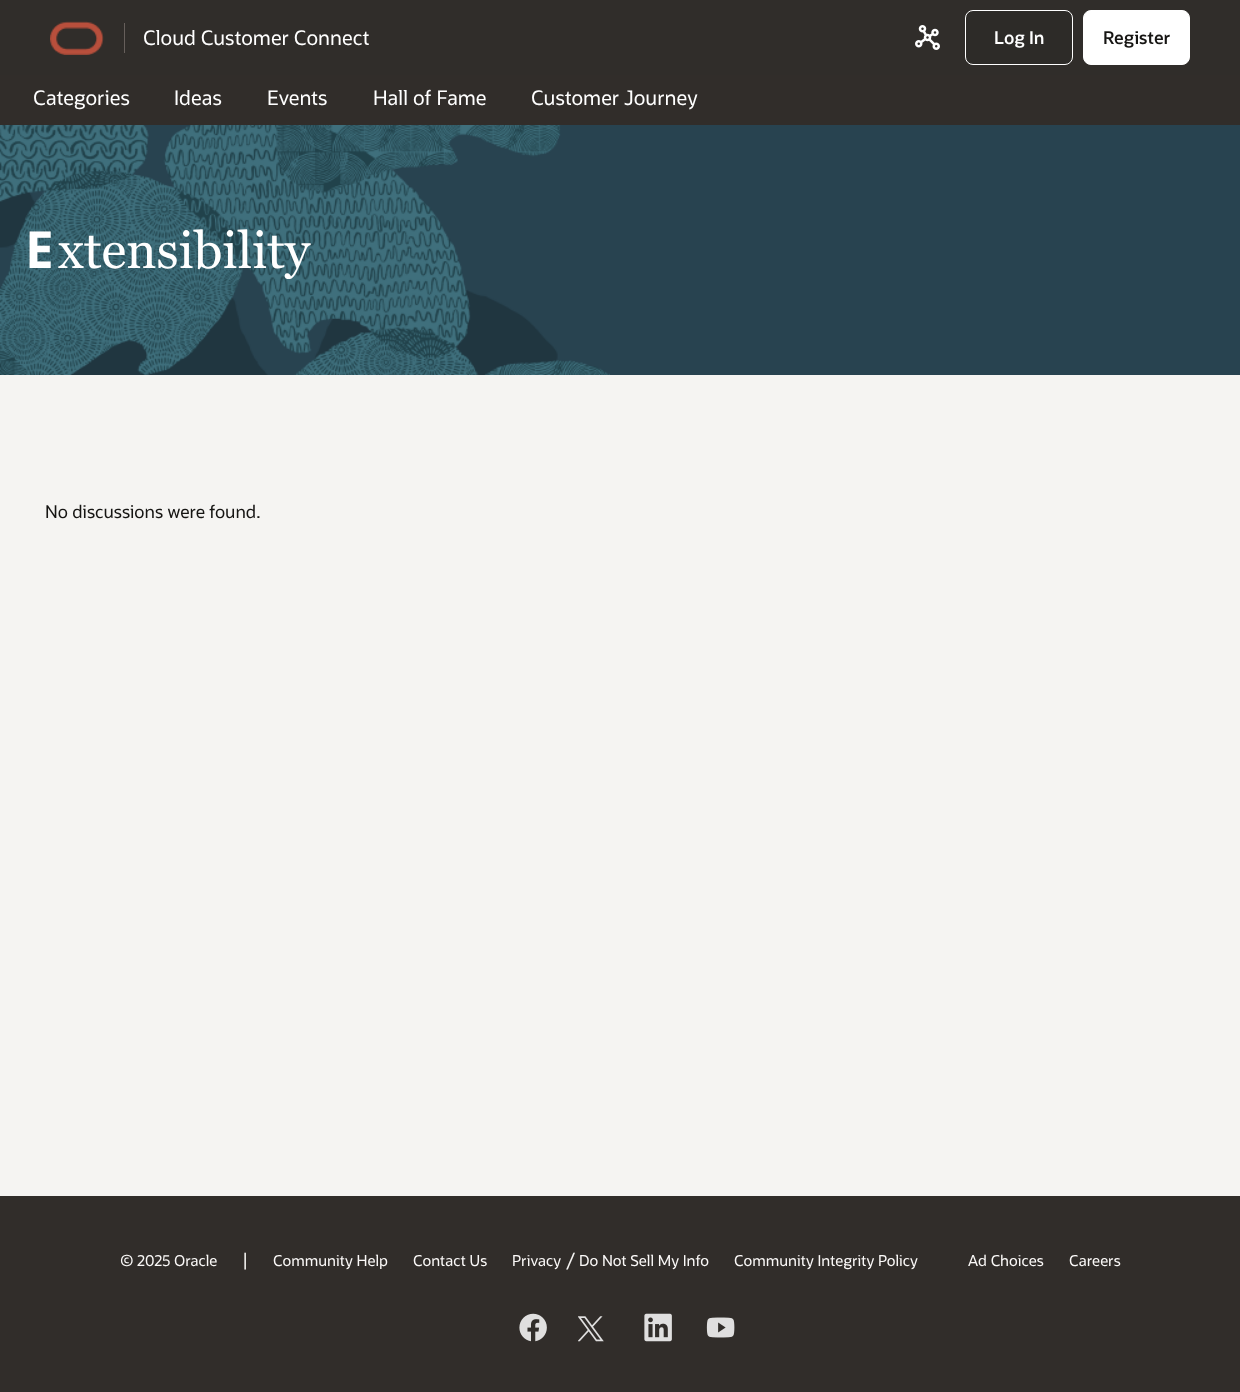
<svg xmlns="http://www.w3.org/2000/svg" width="1240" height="1392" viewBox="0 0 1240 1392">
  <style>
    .t1 { font: 20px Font; fill: #fff; }
    .t2 { font: 600 17.5px Font; fill: #fff; }
    .t3 { font: 600 17.5px Font; fill: #161513; }
    .t4 { font: bold 51.25px Noto Sans; fill: #fff; }
    .t5 { font: 51.25px Georgia; fill: #fff; }
    .t6 { font: 17.5px Font; fill: #161513; }
    .t7 { font: 15px Font; fill: #fbf9f8; }
    .t8 { font: 17.5px Font; fill: #f5f4f2; }
  </style>
  <rect width="100%" height="100%" fill="#f5f4f2"/>
  <rect x="0" y="0" width="1240" height="75" fill="#302d2a"/>
  <image x="50" y="21" width="54" height="34" href="images/1.png"/>
  <rect x="124" y="23" width="1" height="30" fill="#665f5b"/>
  <text x="143" y="45" class="t1">Cloud Customer Connect</text>
  <image x="915" y="25" width="25" height="25" href="images/2.png"/>
  <rect x="965.5" y="10.5" width="107" height="54" rx="7.5" fill="#2d2b28" stroke="#fff"/>
  <text x="994" y="44" class="t2">Log In</text>
  <rect x="1083.5" y="10.5" width="106" height="54" rx="7.5" fill="#fff" stroke="#fff"/>
  <text x="1103" y="44" class="t3">Register</text>
  <rect x="0" y="75" width="1240" height="50" fill="#312d2a"/>
  <text x="33" y="105" class="t1">Categories</text>
  <text x="174" y="105" class="t1">Ideas</text>
  <text x="267" y="105" class="t1">Events</text>
  <text x="373" y="105" class="t1">Hall of Fame</text>
  <text x="531" y="105" class="t1">Customer Journey</text>
  <rect x="610" y="125" width="630" height="250" fill="#284350"/>
  <image x="0" y="125" width="610" height="250" href="images/3.png"/>
  <text x="25" y="268" class="t4">E</text>
  <text x="58" y="268" class="t5">xtensibility</text>
  <text x="45" y="518" class="t6">No discussions were found.</text>
  <rect x="0" y="1196" width="1240" height="196" fill="#312d2a"/>
  <text x="120" y="1266" class="t7">© 2025 Oracle</text>
  <text x="242" y="1266" class="t8">|</text>
  <text x="273" y="1266" class="t7">Community Help</text>
  <text x="413" y="1266" class="t7">Contact Us</text>
  <text x="512" y="1266" class="t7">Privacy</text>
  <text x="566" y="1266" class="t8">/</text>
  <text x="579" y="1266" class="t7">Do Not Sell My Info</text>
  <text x="734" y="1266" class="t7">Community Integrity Policy</text>
  <text x="968" y="1266" class="t7">Ad Choices</text>
  <text x="1069" y="1266" class="t7">Careers</text>
  <image x="519" y="1313" width="28" height="29" href="images/4.png"/>
  <image x="578" y="1316" width="26" height="26" href="images/5.png"/>
  <image x="644" y="1313" width="28" height="29" href="images/6.png"/>
  <image x="706" y="1317" width="29" height="21" href="images/7.png"/>
</svg>
